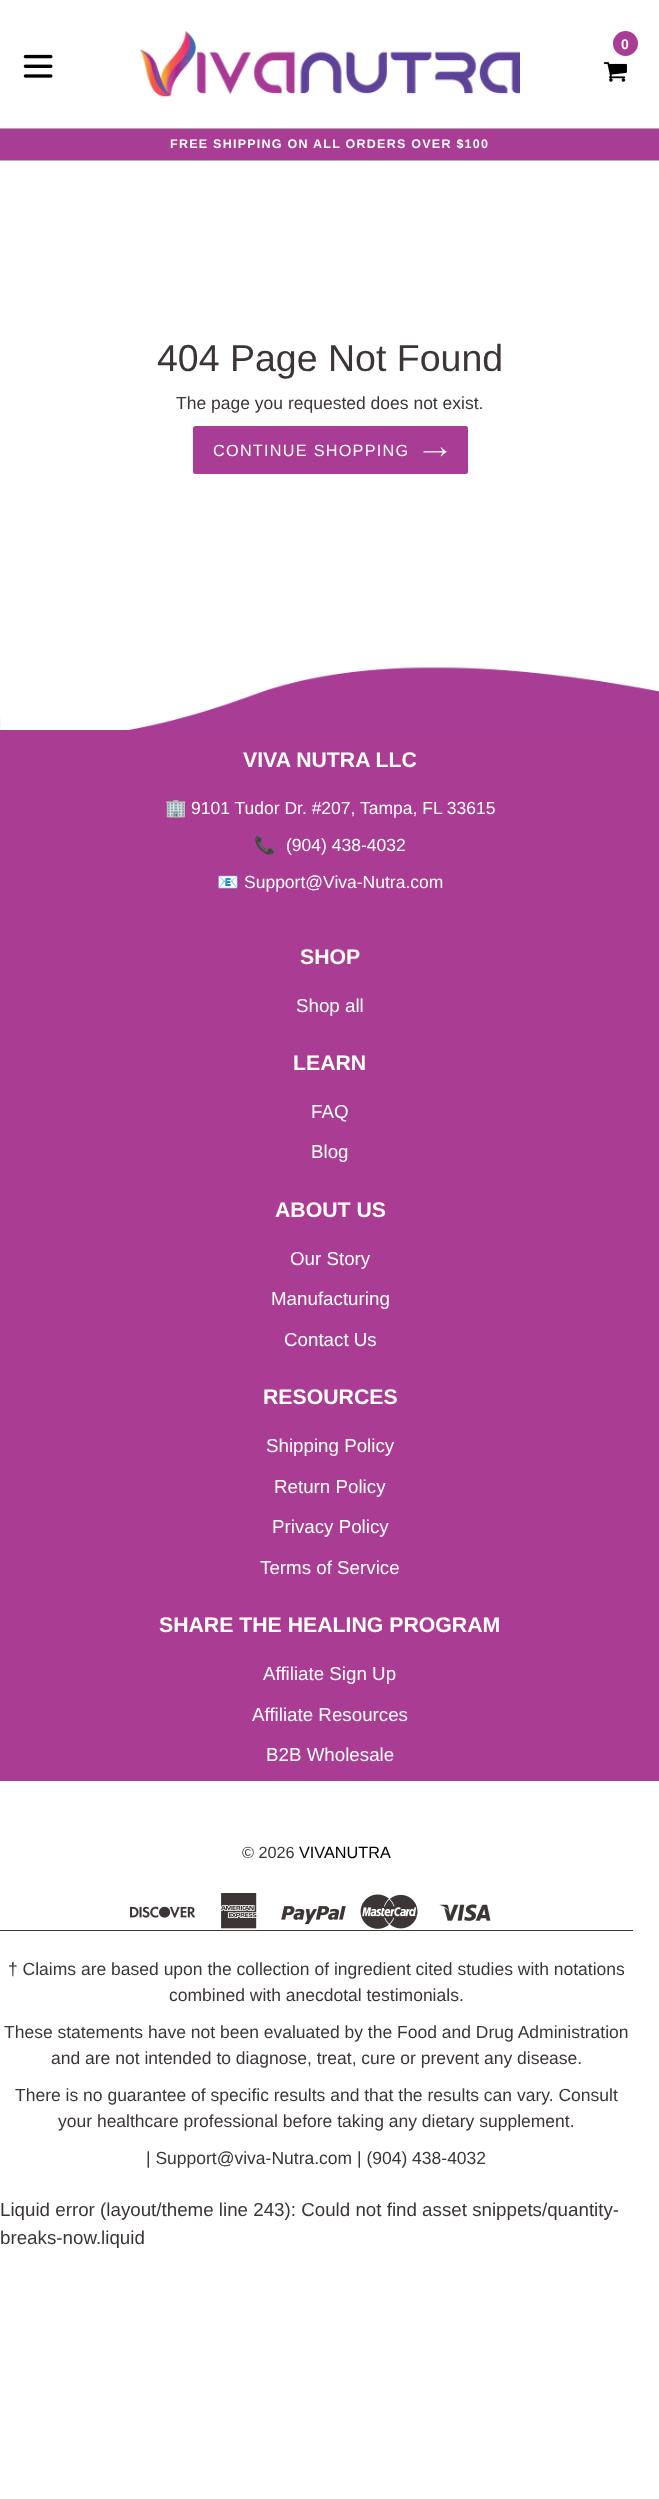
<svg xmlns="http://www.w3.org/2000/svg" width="659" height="2499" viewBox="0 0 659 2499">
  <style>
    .t1 { font: bold 14px Liberation Sans; letter-spacing: 1.25px; fill: #fff; }
    .t2 { font: bold 12.5px Liberation Sans; letter-spacing: 1.25px; fill: #fff; }
    .t3 { font: 37.5px Liberation Sans; fill: #3c3535; }
    .t4 { font: 17.5px Liberation Sans; fill: #3c3535; }
    .t5 { font: 16.25px Liberation Sans; letter-spacing: 1.25px; fill: #fff; }
    .t6 { font: bold 21.25px Liberation Sans; fill: #fff; }
    .t7 { font: 17.5px Noto Color Emoji; fill: #fff; }
    .t8 { font: 17.5px Liberation Sans; fill: #fff; }
    .t9 { font: 18.75px Liberation Sans; fill: #fff; }
    .t10 { font: 16.25px Liberation Sans; fill: #3c3535; }
    .t11 { font: 16.25px Liberation Sans; fill: #000; }
    .t12 { font: 18.75px Liberation Sans; fill: #3c3535; }
  </style>
  <rect width="100%" height="100%" fill="#fff"/>
  <rect x="0" y="128" width="659" height="1" fill="#b1abab"/>
  <image x="140" y="31" width="380" height="66" href="images/1.png"/>
  <circle cx="625.5" cy="43.5" r="12.5" fill="#a93c94"/>
  <text x="621" y="49" class="t1">0</text>
  <image x="603" y="62" width="24" height="20" href="images/2.png"/>
  <image x="23" y="54" width="30" height="24" href="images/3.png"/>
  <rect x="0" y="129" width="659" height="31" fill="#a93c94"/>
  <rect x="0" y="160" width="659" height="1" fill="#b1abab"/>
  <text x="170" y="148" class="t2">FREE SHIPPING ON ALL ORDERS OVER $100</text>
  <text x="157" y="371" class="t3">404 Page Not Found</text>
  <text x="176" y="409" class="t4">The page you requested does not exist.</text>
  <rect x="193" y="426" width="275" height="48" rx="2.5" fill="#a93c94"/>
  <text x="213" y="456" class="t5">CONTINUE SHOPPING</text>
  <image x="423" y="447" width="24" height="10" href="images/4.png"/>
  <image x="0" y="667" width="659" height="63" href="images/5.png"/>
  <rect x="0" y="730" width="659" height="1051" fill="#aa3c93"/>
  <text x="243" y="767" class="t6">VIVA NUTRA LLC</text>
  <text x="165" y="814" class="t7">🏢</text>
  <text x="191" y="814" class="t8">9101 Tudor Dr. #207, Tampa, FL 33615</text>
  <text x="254" y="851" class="t7">📞</text>
  <text x="286" y="851" class="t8">(904) 438-4032</text>
  <text x="217" y="888" class="t7">📧</text>
  <text x="244" y="888" class="t8">Support@Viva-Nutra.com</text>
  <text x="300" y="964" class="t6">SHOP</text>
  <text x="296" y="1012" class="t9">Shop all</text>
  <text x="293" y="1070" class="t6">LEARN</text>
  <text x="311" y="1118" class="t9">FAQ</text>
  <text x="311" y="1158" class="t9">Blog</text>
  <text x="275" y="1217" class="t6">ABOUT US</text>
  <text x="290" y="1265" class="t9">Our Story</text>
  <text x="271" y="1305" class="t9">Manufacturing</text>
  <text x="284" y="1346" class="t9">Contact Us</text>
  <text x="263" y="1404" class="t6">RESOURCES</text>
  <text x="266" y="1452" class="t9">Shipping Policy</text>
  <text x="274" y="1493" class="t9">Return Policy</text>
  <text x="272" y="1533" class="t9">Privacy Policy</text>
  <text x="260" y="1574" class="t9">Terms of Service</text>
  <text x="159" y="1632" class="t6">SHARE THE HEALING PROGRAM</text>
  <text x="263" y="1680" class="t9">Affiliate Sign Up</text>
  <text x="252" y="1721" class="t9">Affiliate Resources</text>
  <text x="266" y="1761" class="t9">B2B Wholesale</text>
  <rect x="0" y="1930" width="633" height="1" fill="#3c3535"/>
  <text x="242" y="1858" class="t10">© 2026</text>
  <text x="299" y="1858" class="t11">VIVANUTRA</text>
  <image x="130" y="1906" width="65" height="12" href="images/6.png"/>
  <image x="221" y="1893" width="36" height="36" href="images/7.png"/>
  <image x="281" y="1906" width="65" height="19" href="images/8.png"/>
  <image x="360" y="1894" width="58" height="35" href="images/9.png"/>
  <image x="439" y="1904" width="52" height="17" href="images/10.png"/>
  <text x="8" y="1975" class="t4">† Claims are based upon the collection of ingredient cited studies with notations</text>
  <text x="169" y="2001" class="t4">combined with anecdotal testimonials.</text>
  <text x="4" y="2038" class="t4">These statements have not been evaluated by the Food and Drug Administration</text>
  <text x="51" y="2064" class="t4">and are not intended to diagnose, treat, cure or prevent any disease.</text>
  <text x="15" y="2101" class="t4">There is no guarantee of specific results and that the results can vary. Consult</text>
  <text x="58" y="2127" class="t4">your healthcare professional before taking any dietary supplement.</text>
  <text x="146" y="2164" class="t4">| Support@viva-Nutra.com | (904) 438-4032</text>
  <text x="0" y="2216" class="t12">Liquid error (layout/theme line 243): Could not find asset snippets/quantity-</text>
  <text x="0" y="2244" class="t12">breaks-now.liquid</text>
</svg>
